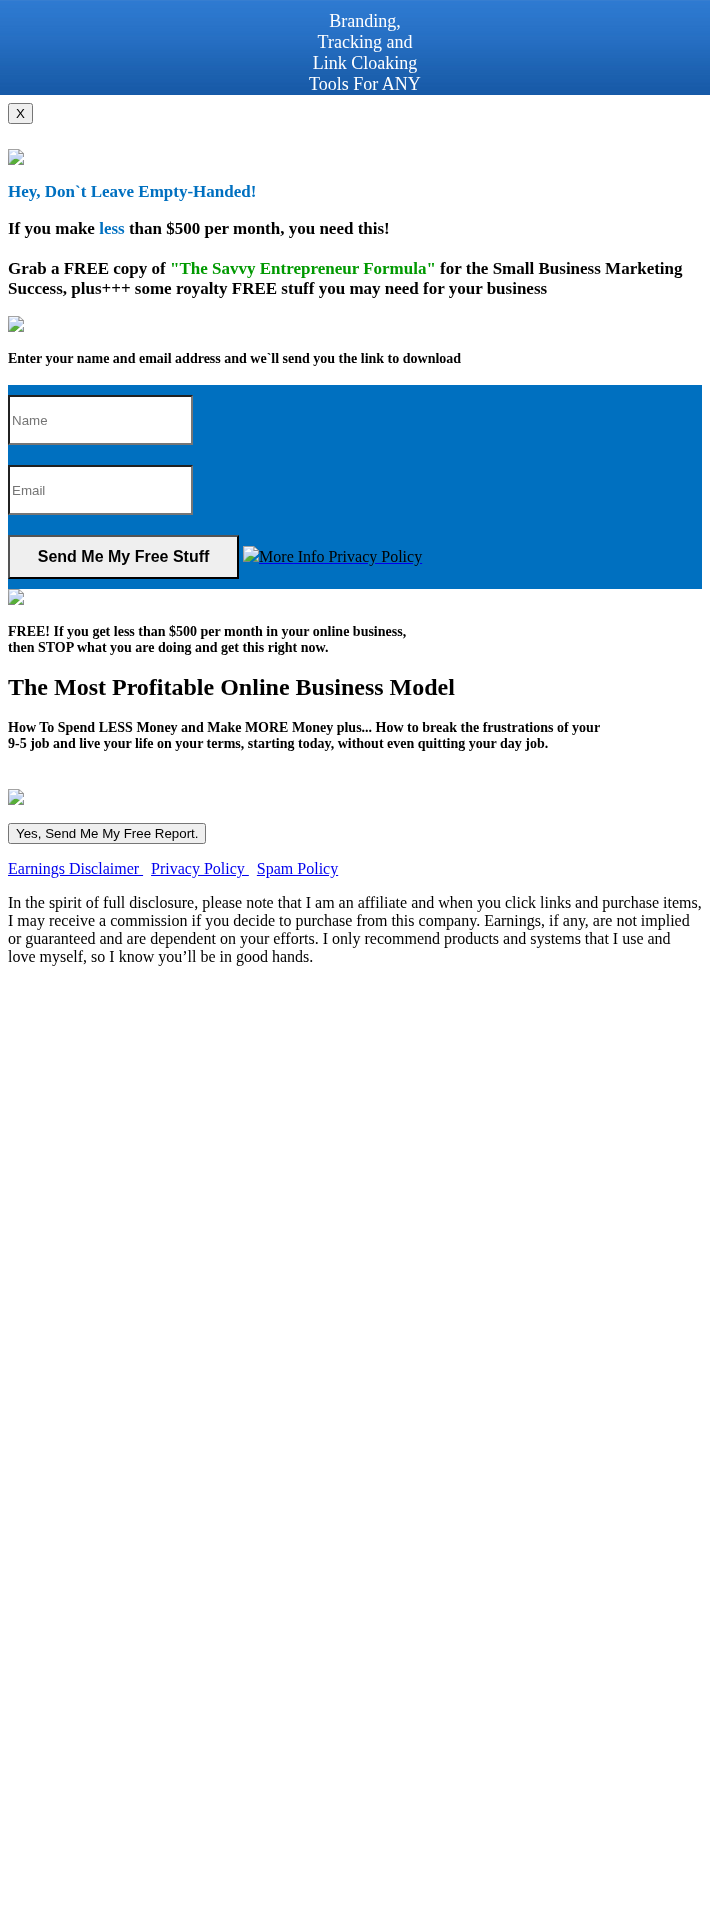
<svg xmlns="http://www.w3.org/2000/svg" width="710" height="1911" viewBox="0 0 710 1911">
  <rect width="100%" height="100%" fill="#fff"/>
  <image x="0" y="0" width="710" height="95" href="images/1.png"/>
  <image x="8" y="103" width="694" height="863" href="images/2.png"/>
</svg>
